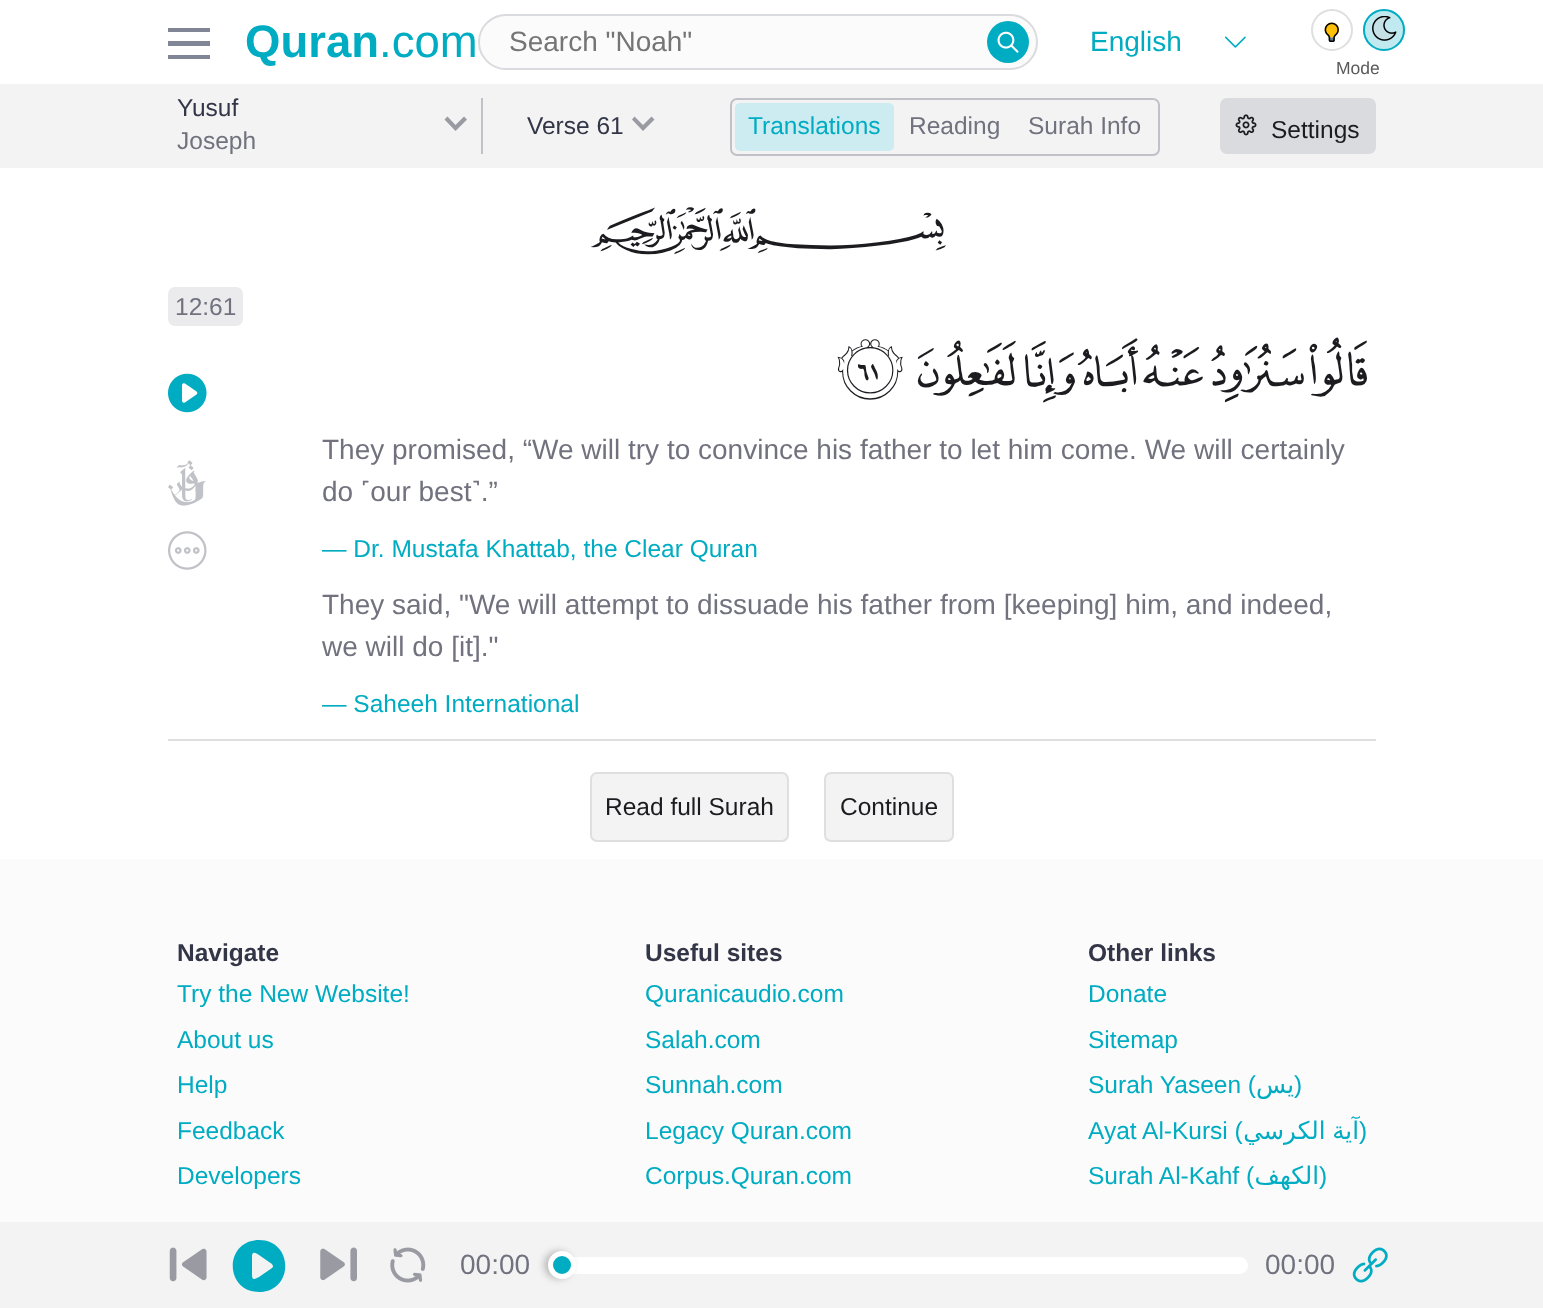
<svg xmlns="http://www.w3.org/2000/svg" width="1543" height="1308" viewBox="0 0 1543 1308">
  <style>
    .t1 { font: bold 45.5px Liberation Sans; fill: #00acc2; }
    .t2 { font: 45.5px Liberation Sans; fill: #00acc2; }
    .t3 { font: 28px Liberation Sans; fill: #757575; }
    .t4 { font: 28px Liberation Sans; fill: #00acc2; }
    .t5 { font: 17.5px Liberation Sans; fill: #595959; }
    .t6 { font: 24.5px Liberation Sans; fill: #333647; }
    .t7 { font: 24.5px Liberation Sans; fill: #71727e; }
    .t8 { font: 24.5px Liberation Sans; fill: #00acc2; }
    .t9 { font: 24.5px Liberation Sans; fill: #1c1c20; }
    .t10 { font: 70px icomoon; fill: #1c1c20; }
    .t11 { font: 52.5px 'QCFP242'; direction: rtl; fill: #1c1c20; }
    .t12 { font: 28px Liberation Sans; fill: #71727e; }
    .t13 { font: bold 24.5px Liberation Sans; fill: #333647; }
    .t14 { font: 24.5px DejaVu Sans; direction: rtl; fill: #00acc2; }
  </style>
  <rect width="100%" height="100%" fill="#fff"/>
  <path d="M210 55V59H168V55ZM210 41V46H168V41ZM210 28V32H168V28Z" fill="#808696" fill-rule="evenodd"/>
  <text x="245" y="57" class="t1">Quran</text>
  <text x="379" y="57" class="t2">.com</text>
  <rect x="479" y="15" width="558" height="54" rx="27" fill="#fbfbfb" stroke="#dadbde" stroke-width="2"/>
  <text x="509" y="51" class="t3">Search "Noah"</text>
  <circle cx="1008" cy="42" r="21" fill="#00acc2"/>
  <image x="997" y="31" width="22" height="22" href="images/1.png"/>
  <text x="1090" y="51" class="t4">English</text>
  <image x="1225" y="36" width="21" height="12" href="images/2.png"/>
  <image x="1324" y="22" width="15" height="20" href="images/3.png"/>
  <circle cx="1332" cy="30" r="20" fill="none" stroke="#dfdfe0" stroke-width="2"/>
  <circle cx="1384" cy="30" r="21" fill="#c0eaf0"/>
  <image x="1372" y="16" width="25" height="25" href="images/4.png"/>
  <circle cx="1384" cy="30" r="20" fill="none" stroke="#00acc2" stroke-width="2"/>
  <text x="1336" y="74" class="t5">Mode</text>
  <rect x="0" y="84" width="1543" height="84" fill="#f3f3f4"/>
  <text x="177" y="116" class="t6">Yusuf</text>
  <text x="177" y="149" class="t7">Joseph</text>
  <path d="M464 116.5L467 119.5L455.5 131L444.5 119.5L447.5 116.5L455.5 125Z" fill="#999aa2"/>
  <rect x="481" y="98" width="2" height="56" fill="#c1c2c7"/>
  <text x="527" y="134" class="t6">Verse 61</text>
  <path d="M651.5 116.5L654.5 119.5L643 131L632 119.5L634.5 116.5L643 125Z" fill="#999aa2"/>
  <rect x="731" y="99" width="428" height="56" rx="6" fill="none" stroke="#c1c2c7" stroke-width="2"/>
  <rect x="735" y="103" width="159" height="48" rx="5" fill="#cdecf1"/>
  <text x="748" y="134" class="t8">Translations</text>
  <text x="909" y="134" class="t7">Reading</text>
  <text x="1028" y="134" class="t7">Surah Info</text>
  <rect x="1220" y="98" width="156" height="56" rx="7" fill="#dadbde"/>
  <image x="1235" y="114" width="22" height="22" href="images/5.png"/>
  <text x="1271" y="138" class="t9">Settings</text>
  <text x="547" y="263" class="t10">﷽</text>
  <rect x="168" y="287" width="75" height="39" rx="7" fill="#ebebed"/>
  <text x="175" y="315" class="t7">12:61</text>
  <image x="168" y="373" width="39" height="40" href="images/6.png"/>
  <image x="168" y="460" width="38" height="46" href="images/7.png"/>
  <image x="168" y="531" width="39" height="39" href="images/8.png"/>
  <text x="903" y="385" class="t11">ﯩ</text>
  <text x="1015" y="385" class="t11">ﯨ</text>
  <text x="1075" y="385" class="t11">ﯧ</text>
  <text x="1136" y="385" class="t11">ﯦ</text>
  <text x="1203" y="385" class="t11">ﯥ</text>
  <text x="1304" y="385" class="t11">ﯤ</text>
  <text x="1375" y="385" class="t11">ﯣ</text>
  <text x="322" y="459" class="t12">They promised, “We will try to convince his father to let him come. We will certainly</text>
  <text x="322" y="501" class="t12">do ˹our best˺.”</text>
  <text x="322" y="557" class="t8">— Dr. Mustafa Khattab, the Clear Quran</text>
  <text x="322" y="614" class="t12">They said, "We will attempt to dissuade his father from [keeping] him, and indeed,</text>
  <text x="322" y="656" class="t12">we will do [it]."</text>
  <text x="322" y="712" class="t8">— Saheeh International</text>
  <rect x="168" y="739" width="1208" height="2" fill="#dfdfe0"/>
  <rect x="591" y="773" width="197" height="68" rx="6" fill="#f3f3f4" stroke="#dfdfe0" stroke-width="2"/>
  <text x="605" y="815" class="t9">Read full Surah</text>
  <rect x="825" y="773" width="128" height="68" rx="6" fill="#f3f3f4" stroke="#dfdfe0" stroke-width="2"/>
  <text x="840" y="815" class="t9">Continue</text>
  <rect x="0" y="1222" width="1543" height="86" fill="#f3f3f4"/>
  <image x="169" y="1247" width="38" height="35" href="images/9.png"/>
  <path d="M259 1240C224 1240 224 1292 259 1292C294 1292 294 1240 259 1240ZM272 1268L259 1277C253 1280 252 1280 252 1273V1255L253 1253C255 1252 257 1254 259 1255L269 1262C271 1263 275 1266 272 1268Z" fill="#00acc2"/>
  <image x="320" y="1247" width="37" height="35" href="images/10.png"/>
  <image x="390" y="1247" width="36" height="36" href="images/11.png"/>
  <text x="460" y="1274" class="t12">00:00</text>
  <rect x="548" y="1257" width="700" height="17" rx="8.5" fill="#fff"/>
  <rect x="544" y="1251" width="28" height="28" rx="14" fill="#83838380" filter="blur(3.5px)"/>
  <circle cx="562" cy="1265" r="11.5" fill="#00acc2" stroke="#fff" stroke-width="5"/>
  <text x="1265" y="1274" class="t12">00:00</text>
  <image x="1352" y="1247" width="36" height="36" href="images/12.png"/>
  <rect x="0" y="859" width="1543" height="363" fill="#fbfbfb"/>
  <text x="177" y="961" class="t13">Navigate</text>
  <text x="177" y="1002" class="t8">Try the New Website!</text>
  <text x="177" y="1048" class="t8">About us</text>
  <text x="177" y="1093" class="t8">Help</text>
  <text x="177" y="1139" class="t8">Feedback</text>
  <text x="177" y="1184" class="t8">Developers</text>
  <text x="645" y="961" class="t13">Useful sites</text>
  <text x="645" y="1002" class="t8">Quranicaudio.com</text>
  <text x="645" y="1048" class="t8">Salah.com</text>
  <text x="645" y="1093" class="t8">Sunnah.com</text>
  <text x="645" y="1139" class="t8">Legacy Quran.com</text>
  <text x="645" y="1184" class="t8">Corpus.Quran.com</text>
  <text x="1088" y="961" class="t13">Other links</text>
  <text x="1088" y="1002" class="t8">Donate</text>
  <text x="1088" y="1048" class="t8">Sitemap</text>
  <text x="1088" y="1093" class="t8">Surah Yaseen (</text>
  <text x="1294" y="1093" class="t14">يس</text>
  <text x="1294" y="1093" class="t8">)</text>
  <text x="1088" y="1139" class="t8">Ayat Al-Kursi (</text>
  <text x="1359" y="1139" word-spacing="-1" class="t14">آية الكرسي</text>
  <text x="1359" y="1139" class="t8">)</text>
  <text x="1088" y="1184" class="t8">Surah Al-Kahf (</text>
  <text x="1319" y="1184" class="t14">الكهف</text>
  <text x="1319" y="1184" class="t8">)</text>
</svg>
